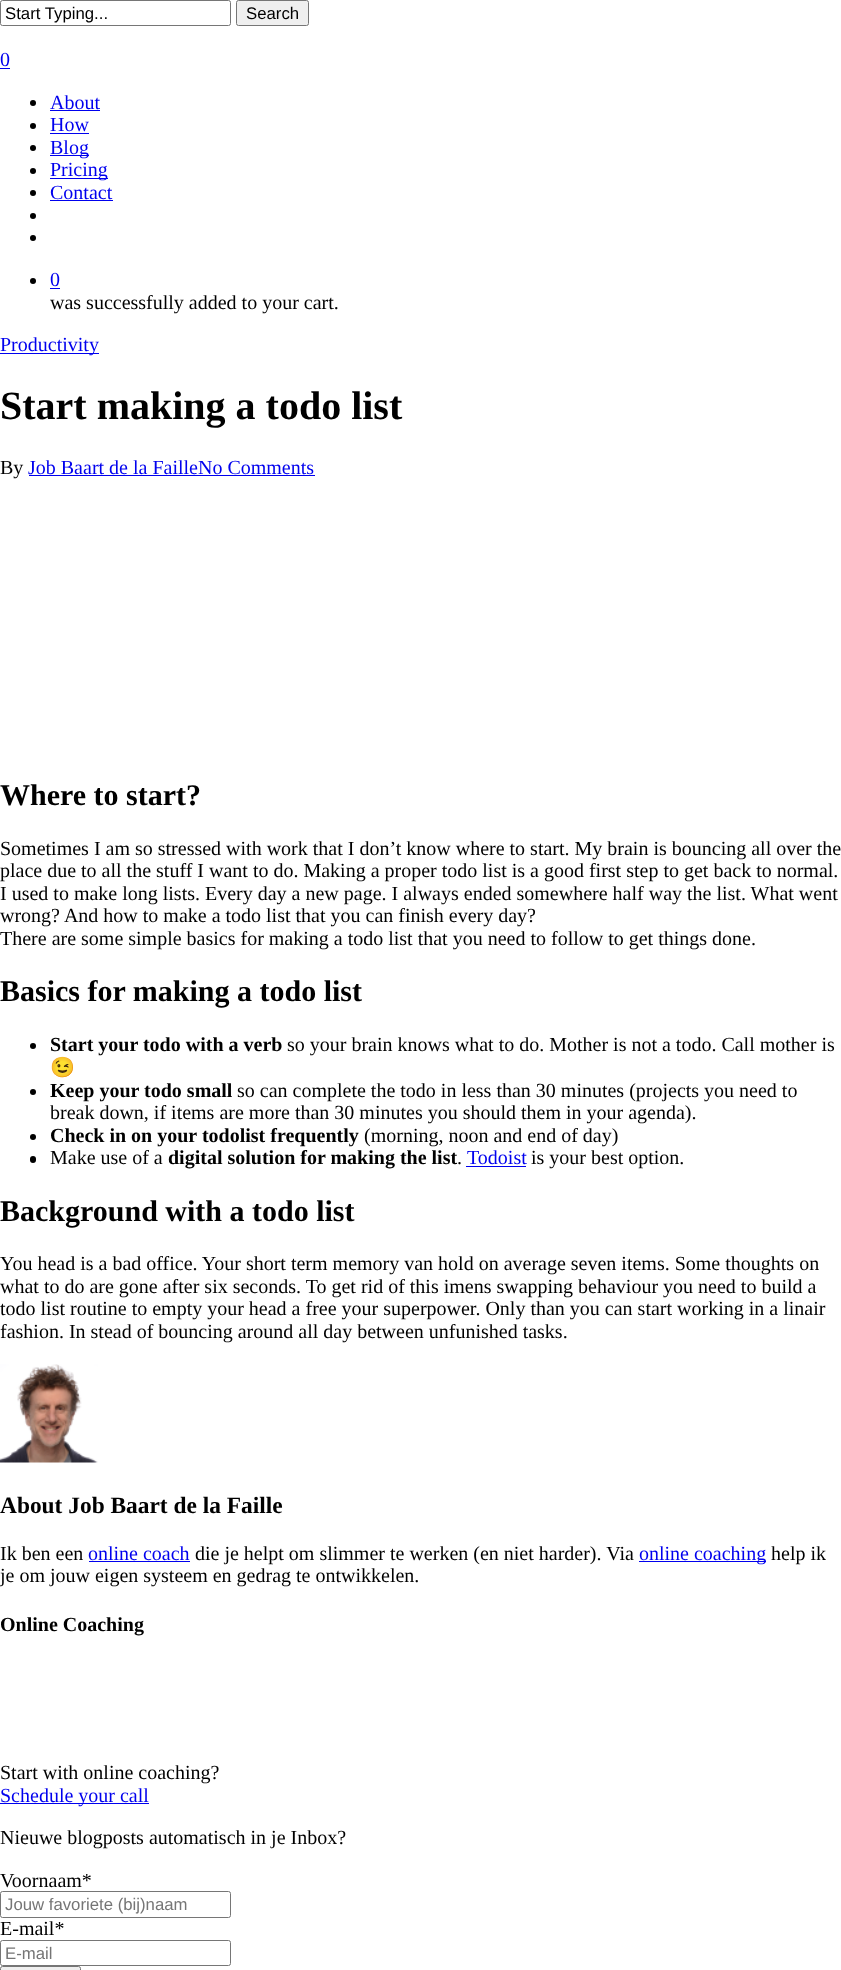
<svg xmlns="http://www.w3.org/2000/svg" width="841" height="1970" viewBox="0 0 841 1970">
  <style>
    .t1 { font: 16.75px Liberation Sans; fill: #000; }
    .t2 { font: 20px Liberation Serif; fill: #00e; }
    .t3 { font: 20px Liberation Serif; fill: #000; }
    .t4 { font: bold 40px Liberation Serif; fill: #000; }
    .t5 { font: bold 30px Liberation Serif; fill: #000; }
    .t6 { font: bold 20px Liberation Serif; fill: #000; }
    .t7 { font: 20px Noto Color Emoji; fill: #000; }
    .t8 { font: bold 23.4px Liberation Serif; fill: #000; }
    .t9 { font: 16.75px Liberation Sans; fill: #757575; }
  </style>
  <rect width="100%" height="100%" fill="#fff"/>
  <rect x="0.5" y="0.5" width="230" height="25" rx="2" fill="none" stroke="#767676"/>
  <text x="5" y="19" class="t1">Start Typing...</text>
  <rect x="236.5" y="0.5" width="72" height="25" rx="2" fill="#efefef" stroke="#767676"/>
  <text x="246" y="19" class="t1">Search</text>
  <text x="0" y="66" class="t2">0</text>
  <rect x="0" y="68" width="10" height="1" fill="#00e"/>
  <circle cx="33" cy="103" r="3" fill="#000"/>
  <text x="50" y="109" class="t2">About</text>
  <rect x="50" y="110" width="50" height="1" fill="#00e"/>
  <circle cx="33" cy="126" r="3" fill="#000"/>
  <text x="50" y="131" class="t2">How</text>
  <rect x="50" y="133" width="39" height="1" fill="#00e"/>
  <circle cx="33" cy="148" r="3" fill="#000"/>
  <rect x="50" y="155" width="39" height="1" fill="#00e"/>
  <text x="50" y="154" class="t2">Blog</text>
  <circle cx="33" cy="171" r="3" fill="#000"/>
  <rect x="50" y="178" width="58" height="1" fill="#00e"/>
  <text x="50" y="176" class="t2">Pricing</text>
  <circle cx="33" cy="193" r="3" fill="#000"/>
  <text x="50" y="199" class="t2">Contact</text>
  <rect x="50" y="200" width="63" height="1" fill="#00e"/>
  <circle cx="33" cy="216" r="3" fill="#000"/>
  <circle cx="33" cy="238" r="3" fill="#000"/>
  <circle cx="33" cy="281" r="3" fill="#000"/>
  <text x="50" y="286" class="t2">0</text>
  <rect x="50" y="288" width="10" height="1" fill="#00e"/>
  <text x="50" y="309" class="t3">was successfully added to your cart.</text>
  <rect x="0" y="353" width="99" height="1" fill="#00e"/>
  <text x="0" y="351" class="t2">Productivity</text>
  <text x="0" y="419" class="t4">Start making a todo list</text>
  <text x="0" y="474" class="t3">By</text>
  <text x="28" y="474" class="t2">Job Baart de la FailleNo Comments</text>
  <rect x="29" y="475" width="286" height="1" fill="#00e"/>
  <text x="0" y="805" class="t5">Where to start?</text>
  <text x="0" y="855" class="t3">Sometimes I am so stressed with work that I don’t know where to start. My brain is bouncing all over the</text>
  <text x="0" y="877" class="t3">place due to all the stuff I want to do. Making a proper todo list is a good first step to get back to normal.</text>
  <text x="0" y="900" class="t3">I used to make long lists. Every day a new page. I always ended somewhere half way the list. What went</text>
  <text x="0" y="922" class="t3">wrong? And how to make a todo list that you can finish every day?</text>
  <text x="0" y="945" class="t3">There are some simple basics for making a todo list that you need to follow to get things done.</text>
  <text x="0" y="1001" class="t5">Basics for making a todo list</text>
  <circle cx="33" cy="1046" r="3" fill="#000"/>
  <text x="50" y="1051" class="t6">Start your todo with a verb</text>
  <text x="287" y="1051" class="t3">so your brain knows what to do. Mother is not a todo. Call mother is</text>
  <text x="50" y="1074" class="t7">😉</text>
  <circle cx="33" cy="1092" r="3" fill="#000"/>
  <text x="50" y="1097" class="t6">Keep your todo small</text>
  <text x="237" y="1097" class="t3">so can complete the todo in less than 30 minutes (projects you need to</text>
  <text x="50" y="1119" class="t3">break down, if items are more than 30 minutes you should them in your agenda).</text>
  <circle cx="33" cy="1137" r="3" fill="#000"/>
  <text x="50" y="1142" class="t6">Check in on your todolist frequently</text>
  <text x="364" y="1142" class="t3">(morning, noon and end of day)</text>
  <rect x="30" y="1156" width="6" height="7" rx="3" fill="#000"/>
  <text x="50" y="1164" class="t3">Make use of a</text>
  <text x="168" y="1164" class="t6">digital solution for making the list</text>
  <text x="457" y="1164" class="t3">.</text>
  <text x="467" y="1164" class="t2">Todoist</text>
  <rect x="466" y="1166" width="60" height="1" fill="#00e"/>
  <text x="531" y="1164" class="t3">is your best option.</text>
  <text x="0" y="1221" class="t5">Background with a todo list</text>
  <text x="0" y="1270" class="t3">You head is a bad office. Your short term memory van hold on average seven items. Some thoughts on</text>
  <text x="0" y="1293" class="t3">what to do are gone after six seconds. To get rid of this imens swapping behaviour you need to build a</text>
  <text x="0" y="1315" class="t3">todo list routine to empty your head a free your superpower. Only than you can start working in a linair</text>
  <text x="0" y="1338" class="t3">fashion. In stead of bouncing around all day between unfunished tasks.</text>
  <image x="0" y="1364" width="98" height="99" href="images/1.png"/>
  <text x="0" y="1513" class="t8">About Job Baart de la Faille</text>
  <text x="0" y="1560" class="t3">Ik ben een</text>
  <text x="88" y="1560" class="t2">online coach</text>
  <rect x="89" y="1561" width="101" height="1" fill="#00e"/>
  <text x="195" y="1560" class="t3">die je helpt om slimmer te werken (en niet harder). Via</text>
  <rect x="639" y="1561" width="127" height="1" fill="#00e"/>
  <text x="639" y="1560" class="t2">online coaching</text>
  <text x="771" y="1560" class="t3">help ik</text>
  <text x="0" y="1582" class="t3">je om jouw eigen systeem en gedrag te ontwikkelen.</text>
  <text x="0" y="1631" class="t6">Online Coaching</text>
  <text x="0" y="1779" class="t3">Start with online coaching?</text>
  <rect x="0" y="1803" width="149" height="1" fill="#00e"/>
  <text x="0" y="1802" class="t2">Schedule your call</text>
  <text x="0" y="1844" class="t3">Nieuwe blogposts automatisch in je Inbox?</text>
  <text x="0" y="1887" class="t3">Voornaam*</text>
  <rect x="0.5" y="1891.5" width="230" height="26" rx="2" fill="none" stroke="#767676"/>
  <text x="5" y="1910" class="t9">Jouw favoriete (bij)naam</text>
  <text x="0" y="1935" class="t3">E-mail*</text>
  <rect x="0.5" y="1940.5" width="230" height="25" rx="2" fill="none" stroke="#767676"/>
  <text x="5" y="1959" class="t9">E-mail</text>
  <rect x="0.5" y="1966.5" width="80" height="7" rx="2" fill="#efefef" stroke="#767676"/>
</svg>
